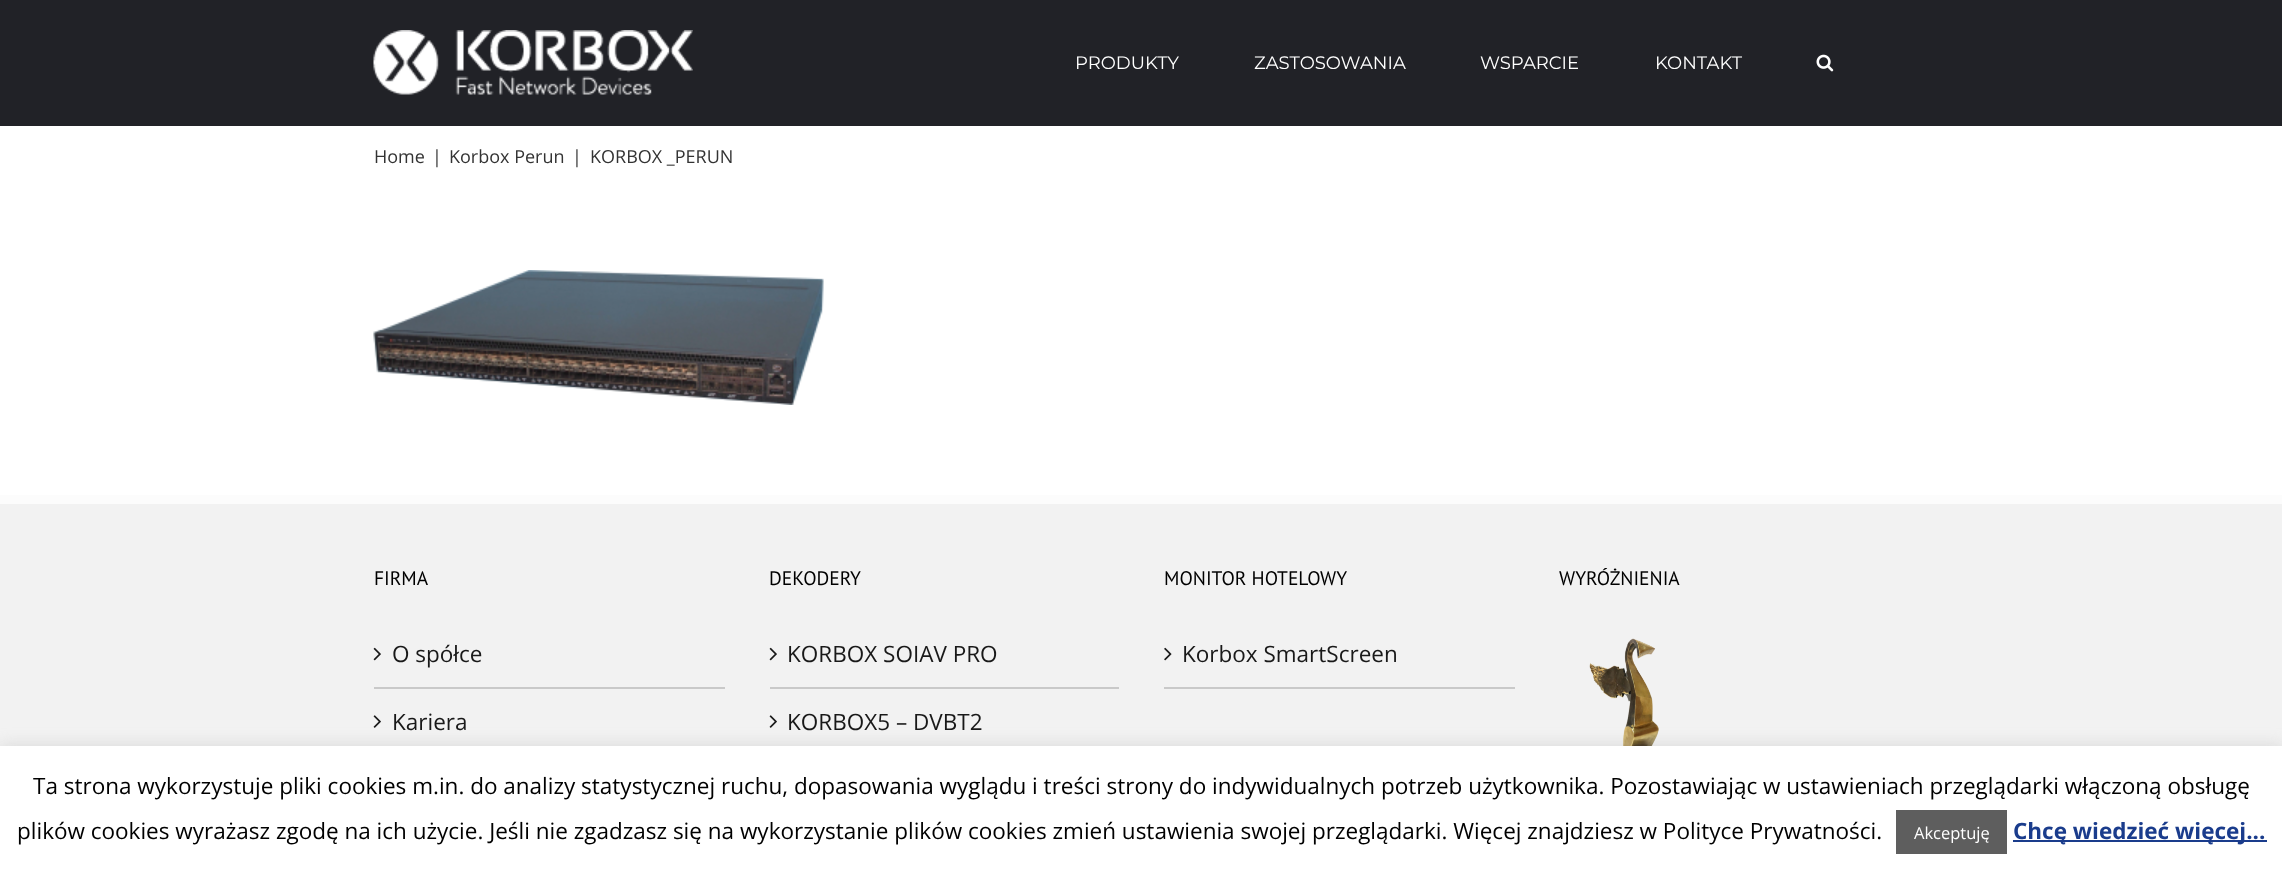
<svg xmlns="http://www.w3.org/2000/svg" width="2282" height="871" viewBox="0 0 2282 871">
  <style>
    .t1 { font: 100 18px Montserrat; fill: #fff; }
    .t2 { font: 18px Open Sans; fill: #333; }
    .t3 { font: 19.5px PT Sans; fill: #000; }
    .t4 { font: 22.5px Open Sans; fill: #191919; }
    .t5 { font: 22.5px Open Sans; fill: #000; }
    .t6 { font: 16.5px Open Sans; fill: #fff; }
    .t7 { font: bold 22.5px Open Sans; fill: #1a3c8c; }
  </style>
  <rect width="100%" height="100%" fill="#fff"/>
  <rect x="0" y="0" width="2282" height="126" fill="#212227"/>
  <image x="373" y="30" width="320" height="65" href="images/1.png"/>
  <text x="1075" y="69" class="t1">PRODUKTY</text>
  <text x="1254" y="69" class="t1">ZASTOSOWANIA</text>
  <text x="1480" y="69" class="t1">WSPARCIE</text>
  <text x="1655" y="69" class="t1">KONTAKT</text>
  <image x="1816" y="54" width="18" height="18" href="images/2.png"/>
  <text x="374" y="163" class="t2">Home</text>
  <text x="432" y="163" class="t2">|</text>
  <text x="449" y="163" class="t2">Korbox Perun</text>
  <text x="572" y="163" class="t2">|</text>
  <text x="590" y="163" class="t2">KORBOX _PERUN</text>
  <image x="373" y="270" width="451" height="135" href="images/3.png"/>
  <rect x="0" y="504" width="2282" height="242" fill="#f2f2f2"/>
  <rect x="0" y="495" width="2282" height="9" fill="#fcfcfc"/>
  <text x="374" y="585" class="t3">FIRMA</text>
  <rect x="374" y="687" width="351" height="2" fill="#c9c9c9"/>
  <image x="373" y="647" width="8" height="14" href="images/4.png"/>
  <text x="392" y="662" class="t4">O spółce</text>
  <image x="373" y="715" width="8" height="13" href="images/5.png"/>
  <text x="392" y="730" class="t4">Kariera</text>
  <text x="769" y="585" class="t3">DEKODERY</text>
  <rect x="770" y="687" width="349" height="2" fill="#c9c9c9"/>
  <image x="769" y="647" width="8" height="14" href="images/4.png"/>
  <text x="787" y="662" class="t4">KORBOX SOIAV PRO</text>
  <image x="769" y="715" width="8" height="13" href="images/5.png"/>
  <text x="787" y="730" class="t4">KORBOX5 – DVBT2</text>
  <text x="1164" y="585" class="t3">MONITOR HOTELOWY</text>
  <rect x="1164" y="687" width="351" height="2" fill="#c9c9c9"/>
  <image x="1164" y="647" width="8" height="14" href="images/6.png"/>
  <text x="1182" y="662" class="t4">Korbox SmartScreen</text>
  <text x="1559" y="585" class="t3">WYRÓŻNIENIA</text>
  <image x="1589" y="638" width="70" height="108" href="images/7.png"/>
  <rect x="0" y="744" width="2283" height="126" fill="#acabab4d" filter="blur(7.5px)"/>
  <rect x="0" y="746" width="2282" height="125" fill="#fff"/>
  <text x="33" y="794" class="t5">Ta strona wykorzystuje pliki cookies m.in. do analizy statystycznej ruchu, dopasowania wyglądu i treści strony do indywidualnych potrzeb użytkownika. Pozostawiając w ustawieniach przeglądarki włączoną obsługę</text>
  <text x="17" y="839" class="t5">plików cookies wyrażasz zgodę na ich użycie. Jeśli nie zgadzasz się na wykorzystanie plików cookies zmień ustawienia swojej przeglądarki. Więcej znajdziesz w Polityce Prywatności.</text>
  <rect x="1896" y="810" width="111" height="44" fill="#5e5e5e"/>
  <text x="1914" y="839" class="t6">Akceptuję</text>
  <rect x="2013" y="840" width="254" height="2" fill="#1a3c8c"/>
  <text x="2013" y="839" class="t7">Chcę wiedzieć więcej...</text>
</svg>
